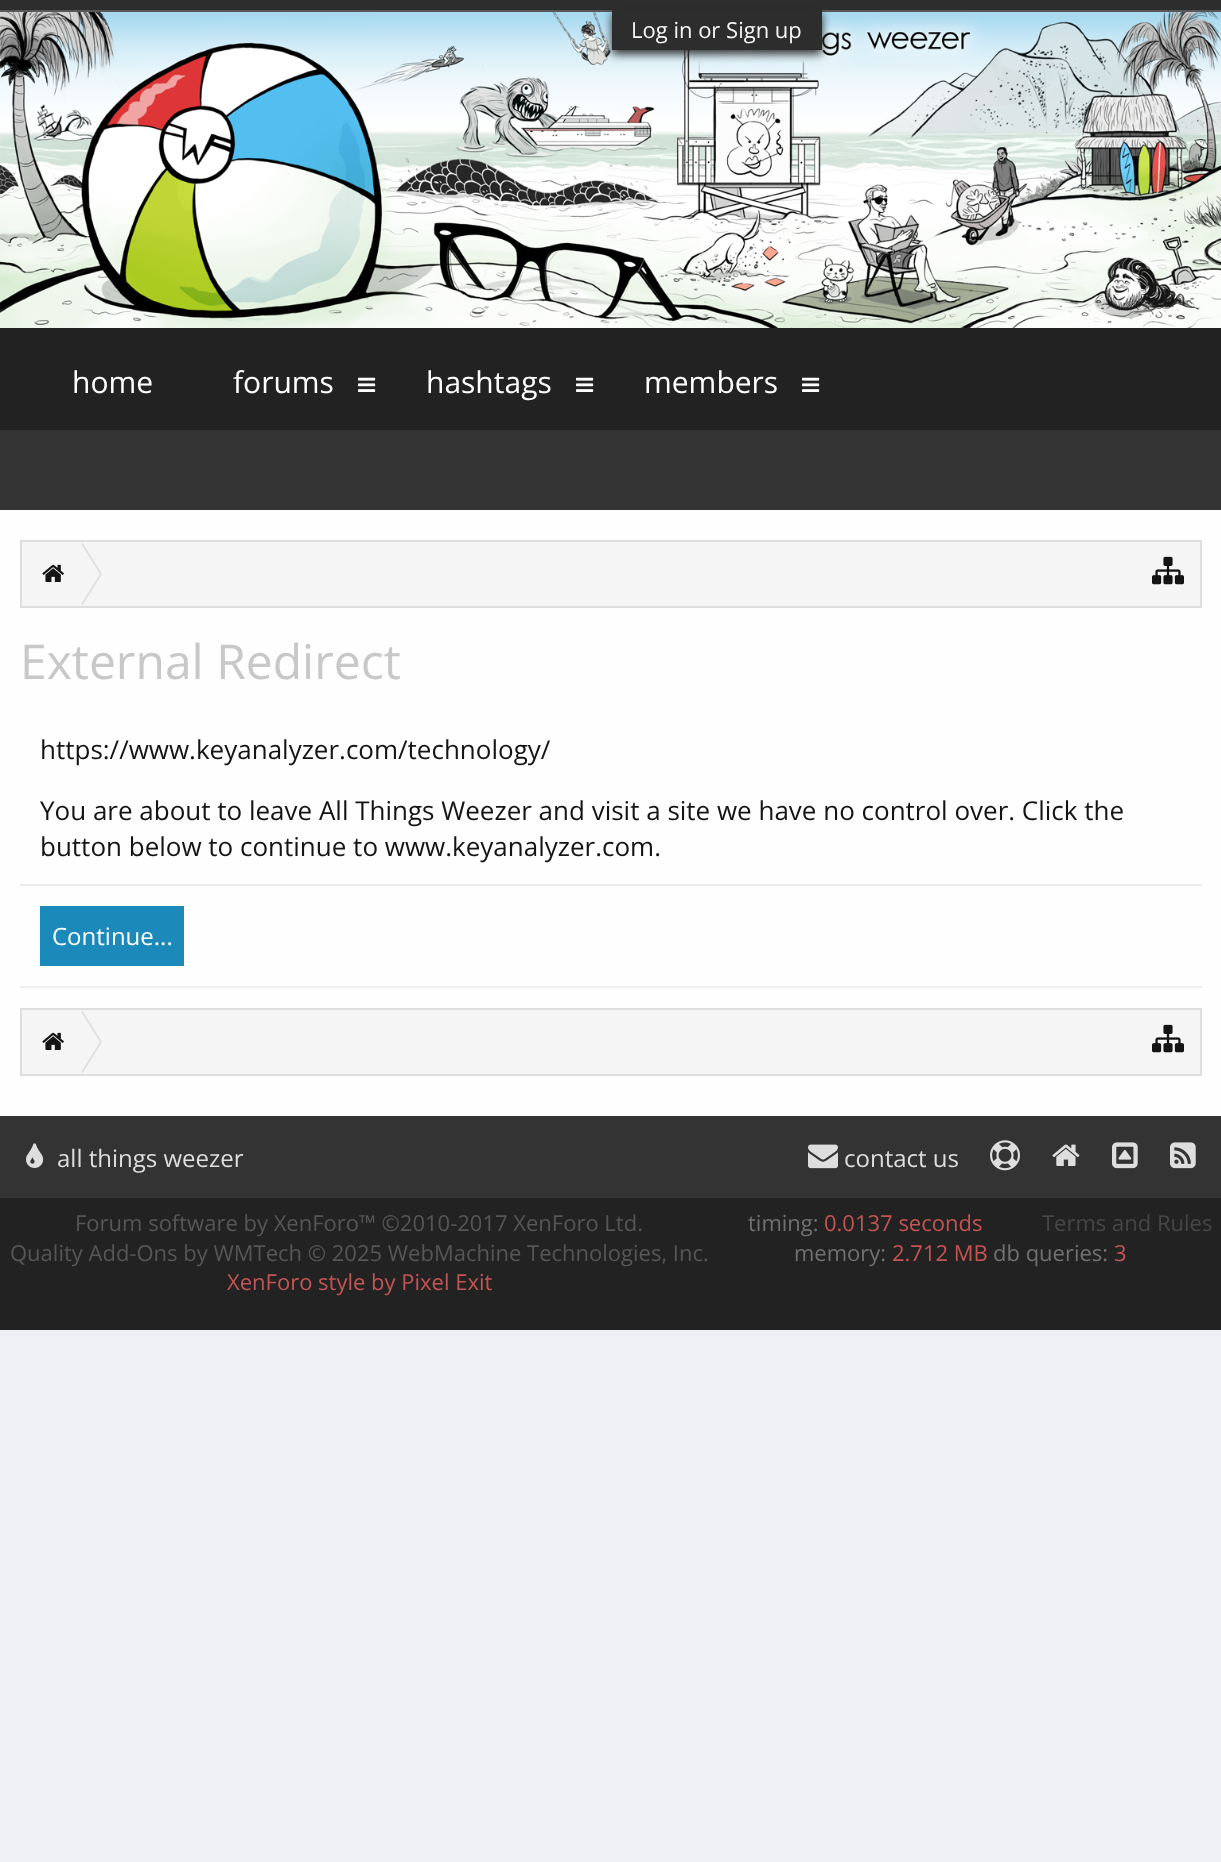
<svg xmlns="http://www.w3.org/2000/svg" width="1221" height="1862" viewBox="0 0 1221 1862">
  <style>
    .t1 { font: 22px Open Sans; fill: #f5f5f5; }
    .t2 { font: 30px Open Sans; fill: #fff; }
    .t3 { font: 48px Open Sans; fill: #c8c8c8; }
    .t4 { font: 26px Open Sans; fill: #141414; }
    .t5 { font: 24px Open Sans; fill: #fff; }
    .t6 { font: 24px Open Sans; fill: #dedede; }
    .t7 { font: 22px Open Sans; fill: #565656; }
    .t8 { font: 22px Open Sans; fill: #c45454; }
    .t9 { font: 22px Open Sans; fill: #717171; }
    .t10 { font: 22px Open Sans; fill: #464646; }
  </style>
  <rect width="100%" height="100%" fill="#eef0f4"/>
  <rect x="0" y="0" width="1221" height="10" fill="#2d2d2d"/>
  <rect x="0" y="10" width="1221" height="2" fill="#585858"/>
  <image x="0" y="12" width="1221" height="316" href="images/1.png"/>
  <rect x="612" y="14" width="210" height="40" fill="#2d2d2d" filter="blur(5px)"/>
  <rect x="612" y="10" width="210" height="40" fill="#2d2d2d"/>
  <text x="631" y="38" class="t1">Log in or Sign up</text>
  <rect x="0" y="328" width="1221" height="102" fill="#222"/>
  <text x="72" y="393" class="t2">home</text>
  <text x="233" y="393" class="t2">forums</text>
  <image x="358" y="377" width="18" height="15" href="images/2.png"/>
  <text x="426" y="393" class="t2">hashtags</text>
  <image x="576" y="377" width="18" height="15" href="images/2.png"/>
  <text x="644" y="393" class="t2">members</text>
  <image x="802" y="377" width="18" height="15" href="images/2.png"/>
  <rect x="0" y="430" width="1221" height="80" fill="#333"/>
  <rect x="0" y="510" width="1221" height="606" fill="#fefefe"/>
  <rect x="21" y="541" width="1180" height="66" fill="#f5f5f5" stroke="#dedede" stroke-width="2"/>
  <image x="42" y="564" width="22" height="18" href="images/3.png"/>
  <path d="M82 606V542L102 574Z" fill="#dedede"/>
  <path d="M80 606V542L100 574Z" fill="#f5f5f5"/>
  <image x="1152" y="556" width="32" height="29" href="images/4.png"/>
  <text x="20" y="679" class="t3">External Redirect</text>
  <rect x="20" y="884" width="1182" height="2" fill="#ebebeb"/>
  <text x="40" y="759" class="t4">https://www.keyanalyzer.com/technology/</text>
  <text x="40" y="820" class="t4">You are about to leave All Things Weezer and visit a site we have no control over. Click the</text>
  <text x="40" y="856" class="t4">button below to continue to www.keyanalyzer.com.</text>
  <rect x="20" y="986" width="1182" height="2" fill="#efefef"/>
  <rect x="40" y="906" width="144" height="60" fill="#1c89bb"/>
  <text x="52" y="945" class="t5">Continue...</text>
  <rect x="21" y="1009" width="1180" height="66" fill="#f5f5f5" stroke="#dedede" stroke-width="2"/>
  <image x="42" y="1032" width="22" height="18" href="images/3.png"/>
  <path d="M82 1074V1010L102 1042Z" fill="#dedede"/>
  <path d="M80 1074V1010L100 1042Z" fill="#f5f5f5"/>
  <image x="1152" y="1024" width="32" height="29" href="images/4.png"/>
  <rect x="0" y="1116" width="1221" height="82" fill="#333"/>
  <image x="26" y="1143" width="18" height="25" href="images/5.png"/>
  <text x="57" y="1167" class="t6">all things weezer</text>
  <image x="808" y="1144" width="30" height="25" href="images/6.png"/>
  <text x="844" y="1167" class="t6">contact us</text>
  <image x="990" y="1140" width="30" height="31" href="images/7.png"/>
  <image x="1052" y="1144" width="28" height="22" href="images/8.png"/>
  <image x="1112" y="1142" width="26" height="27" href="images/9.png"/>
  <image x="1170" y="1142" width="26" height="27" href="images/10.png"/>
  <rect x="0" y="1198" width="1221" height="132" fill="#222"/>
  <text x="75" y="1231" class="t7">Forum software by XenForo™ ©2010-2017 XenForo Ltd.</text>
  <text x="10" y="1261" class="t7">Quality Add-Ons by WMTech © 2025 WebMachine Technologies, Inc.</text>
  <text x="227" y="1290" class="t8">XenForo style by Pixel Exit</text>
  <text x="748" y="1231" class="t9">timing:</text>
  <text x="824" y="1231" class="t8">0.0137 seconds</text>
  <text x="794" y="1261" class="t9">memory:</text>
  <text x="892" y="1261" class="t8">2.712 MB</text>
  <text x="993" y="1261" class="t9">db queries:</text>
  <text x="1114" y="1261" class="t8">3</text>
  <text x="1042" y="1231" class="t10">Terms and Rules</text>
</svg>
